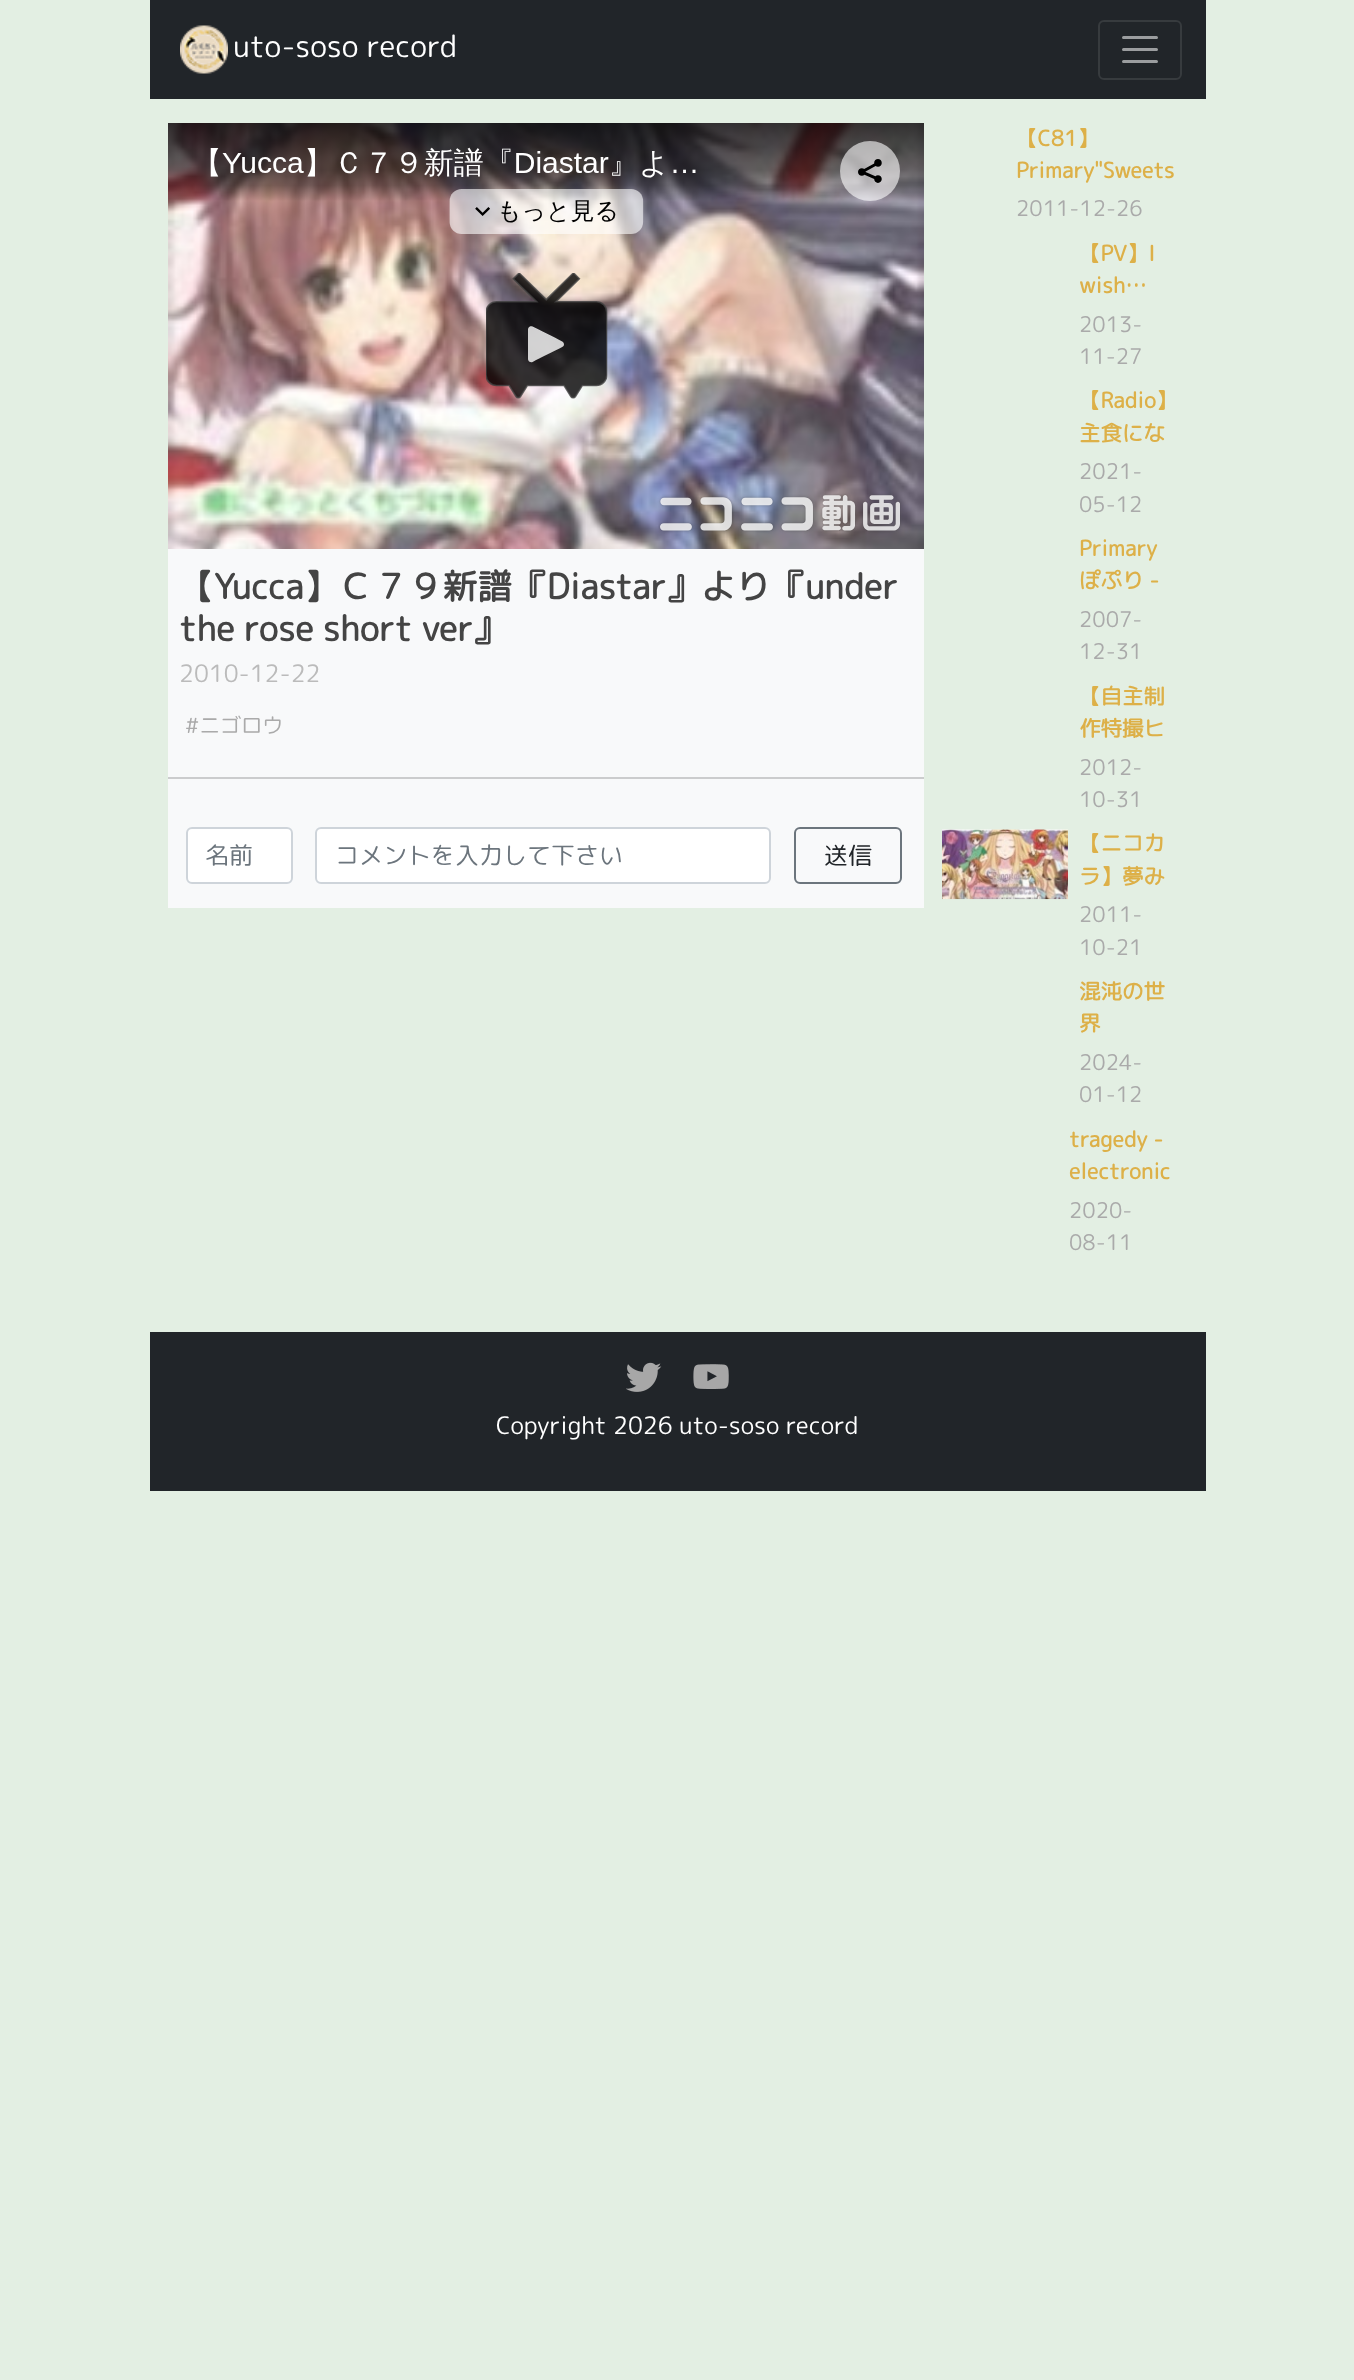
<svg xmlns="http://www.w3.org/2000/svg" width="1354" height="2380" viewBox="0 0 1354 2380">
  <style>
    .t1 { font: 30px 'Rounded Mplus 1c'; fill: #fff; }
    .t2 { font: bold 34.7px 'Rounded Mplus 1c'; fill: #444; }
    .t3 { font: 24px 'Rounded Mplus 1c'; fill: #bbb; }
    .t4 { font: 21px 'Rounded Mplus 1c'; fill: #aaa; }
    .t5 { font: 24px 'Rounded Mplus 1c'; fill: #6c757d; }
    .t6 { font: 24px 'Rounded Mplus 1c'; fill: #212529; }
    .t7 { font: bold 21.5px 'Rounded Mplus 1c'; fill: #ddb048; }
    .t8 { font: 21.5px 'Rounded Mplus 1c'; fill: #aaa; }
    .t9 { font: 24px 'Rounded Mplus 1c'; fill: #fff; }
  </style>
  <rect width="100%" height="100%" fill="#e3efe3"/>
  <rect x="150" y="0" width="1056" height="99" fill="#212529"/>
  <image x="180" y="25" width="48" height="49" href="images/1.png"/>
  <text x="233" y="57" class="t1">uto-soso record</text>
  <rect x="1099" y="21" width="82" height="58" rx="5" fill="none" stroke="#373b3e" stroke-width="2"/>
  <path d="M1123.5 37.5H1156.5M1123.5 49.5H1156.5M1123.5 61.5H1156.5" fill="none" stroke="#9b9d9f" stroke-width="3" stroke-linecap="round"/>
  <rect x="168" y="549" width="756" height="359" fill="#f8f9fa"/>
  <image x="168" y="123" width="756" height="426" href="images/2.png"/>
  <text x="179" y="599" class="t2">【Yucca】Ｃ７９新譜『Diastar』より『under</text>
  <text x="179" y="641" class="t2">the rose short ver』</text>
  <text x="179" y="682" class="t3">2010-12-22</text>
  <text x="185" y="733" class="t4">#ニゴロウ</text>
  <rect x="168" y="777" width="756" height="2" fill="#cbcccd"/>
  <rect x="187" y="828" width="105" height="55" rx="5" fill="#fff" stroke="#ced4da" stroke-width="2"/>
  <text x="205" y="864" class="t5">名前</text>
  <rect x="316" y="828" width="454" height="55" rx="5" fill="#fff" stroke="#ced4da" stroke-width="2"/>
  <text x="335" y="864" class="t5">コメントを入力して下さい</text>
  <rect x="795" y="828" width="106" height="55" rx="5" fill="none" stroke="#6c757d" stroke-width="2"/>
  <text x="824" y="864" class="t6">送信</text>
  <text x="1016" y="146" class="t7">【C81】</text>
  <text x="1016" y="178" class="t7">Primary"Sweets</text>
  <text x="1016" y="216" class="t8">2011-12-26</text>
  <text x="1079" y="261" class="t7">【PV】I</text>
  <text x="1079" y="293" class="t7">wish…</text>
  <text x="1079" y="332" class="t8">2013-</text>
  <text x="1079" y="364" class="t8">11-27</text>
  <text x="1079" y="408" class="t7">【Radio】</text>
  <text x="1079" y="441" class="t7">主食にな</text>
  <text x="1079" y="479" class="t8">2021-</text>
  <text x="1079" y="512" class="t8">05-12</text>
  <text x="1079" y="556" class="t7">Primary</text>
  <text x="1079" y="588" class="t7">ぽぷり -</text>
  <text x="1079" y="627" class="t8">2007-</text>
  <text x="1079" y="659" class="t8">12-31</text>
  <text x="1079" y="704" class="t7">【自主制</text>
  <text x="1079" y="736" class="t7">作特撮ヒ</text>
  <text x="1079" y="775" class="t8">2012-</text>
  <text x="1079" y="807" class="t8">10-31</text>
  <image x="942" y="829" width="126" height="71" href="images/3.png"/>
  <text x="1079" y="851" class="t7">【ニコカ</text>
  <text x="1079" y="884" class="t7">ラ】夢み</text>
  <text x="1079" y="922" class="t8">2011-</text>
  <text x="1079" y="955" class="t8">10-21</text>
  <text x="1079" y="999" class="t7">混沌の世</text>
  <text x="1079" y="1031" class="t7">界</text>
  <text x="1079" y="1070" class="t8">2024-</text>
  <text x="1079" y="1102" class="t8">01-12</text>
  <text x="1069" y="1147" class="t7">tragedy -</text>
  <text x="1069" y="1179" class="t7">electronic</text>
  <text x="1069" y="1218" class="t8">2020-</text>
  <text x="1069" y="1250" class="t8">08-11</text>
  <rect x="150" y="1332" width="1056" height="159" fill="#212529"/>
  <image x="626" y="1362" width="36" height="30" href="images/4.png"/>
  <image x="693" y="1364" width="36" height="25" href="images/5.png"/>
  <text x="496" y="1434" class="t9">Copyright 2026 uto-soso record</text>
</svg>
